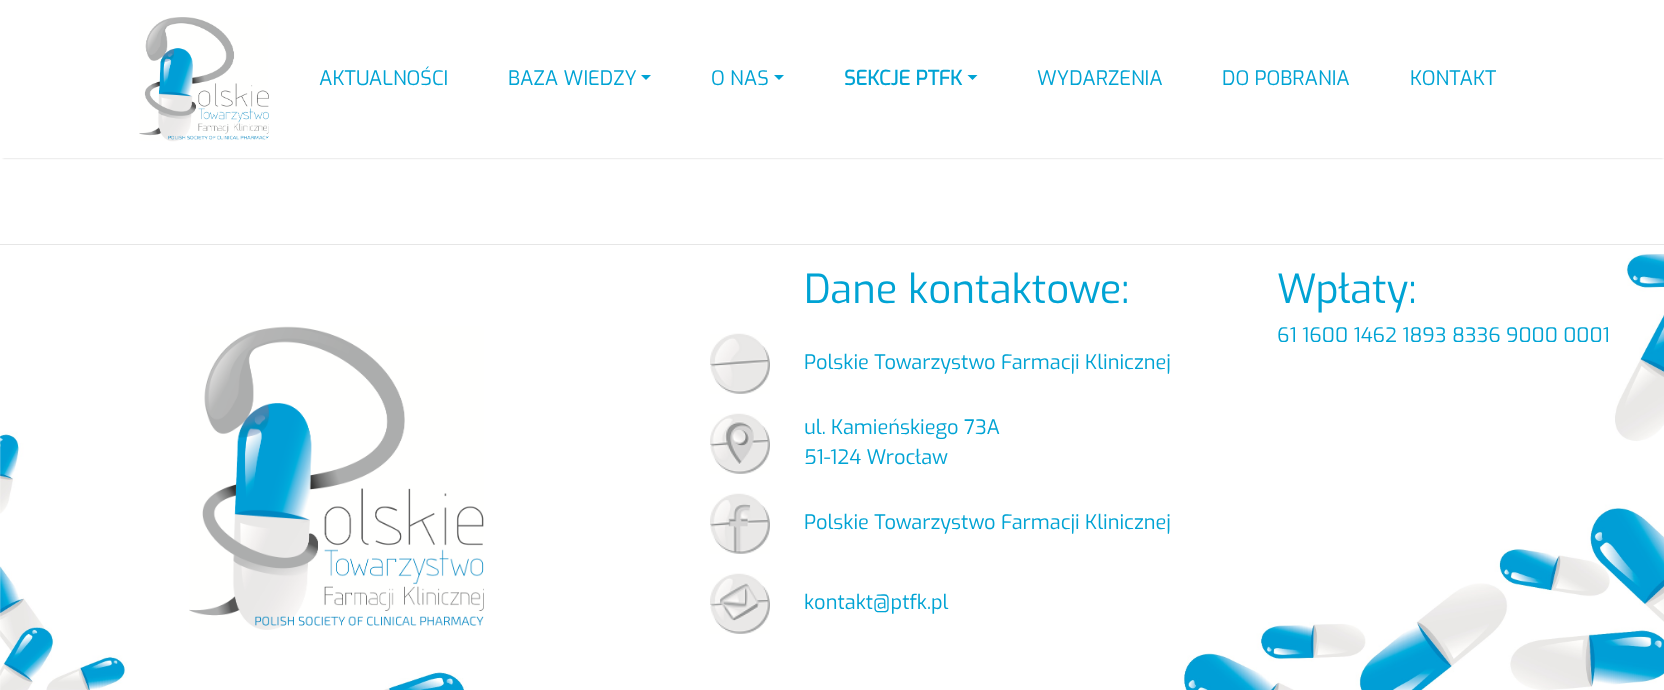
<svg xmlns="http://www.w3.org/2000/svg" width="1664" height="690" viewBox="0 0 1664 690">
  <style>
    .t1 { font: 20px Exo; fill: #00a3d4; }
    .t2 { font: bold 20px Exo; fill: #00a3d4; }
    .t3 { font: 40px Exo; fill: #00a3d4; }
  </style>
  <rect width="100%" height="100%" fill="#fff"/>
  <rect x="3" y="5" width="1660" height="153" fill="#00000033" filter="blur(1px)"/>
  <rect x="1" y="3" width="1663" height="155" fill="#fff"/>
  <image x="139" y="17" width="130" height="125" href="images/1.png"/>
  <text x="319" y="85" class="t1">AKTUALNOŚCI</text>
  <text x="508" y="85" class="t1">BAZA WIEDZY</text>
  <path d="M641 75H651L646 80Z" fill="#00a3d4"/>
  <text x="711" y="85" class="t1">O NAS</text>
  <path d="M774 75H784L779 80Z" fill="#00a3d4"/>
  <text x="844" y="85" class="t2">SEKCJE PTFK</text>
  <path d="M967.5 75H977.5L972.5 80Z" fill="#00a3d4"/>
  <text x="1037" y="85" class="t1">WYDARZENIA</text>
  <text x="1222" y="85" class="t1">DO POBRANIA</text>
  <text x="1410" y="85" class="t1">KONTAKT</text>
  <image x="0" y="253" width="1664" height="437" href="images/2.png"/>
  <rect x="0" y="244" width="1664" height="1" fill="#e6e6e6"/>
  <text x="804" y="303" class="t3">Dane kontaktowe:</text>
  <image x="710" y="333" width="60" height="61" href="images/3.png"/>
  <text x="804" y="369" class="t1">Polskie Towarzystwo Farmacji Klinicznej</text>
  <image x="710" y="413" width="60" height="61" href="images/4.png"/>
  <text x="804" y="434" class="t1">ul. Kamieńskiego 73A</text>
  <text x="804" y="464" class="t1">51-124 Wrocław</text>
  <image x="710" y="493" width="60" height="61" href="images/5.png"/>
  <text x="804" y="529" class="t1">Polskie Towarzystwo Farmacji Klinicznej</text>
  <image x="710" y="573" width="60" height="61" href="images/6.png"/>
  <text x="804" y="609" class="t1">kontakt@ptfk.pl</text>
  <text x="1277" y="303" class="t3">Wpłaty:</text>
  <text x="1277" y="342" class="t1">61 1600 1462 1893 8336 9000 0001</text>
  <image x="189" y="326" width="295" height="304" href="images/7.png"/>
</svg>
